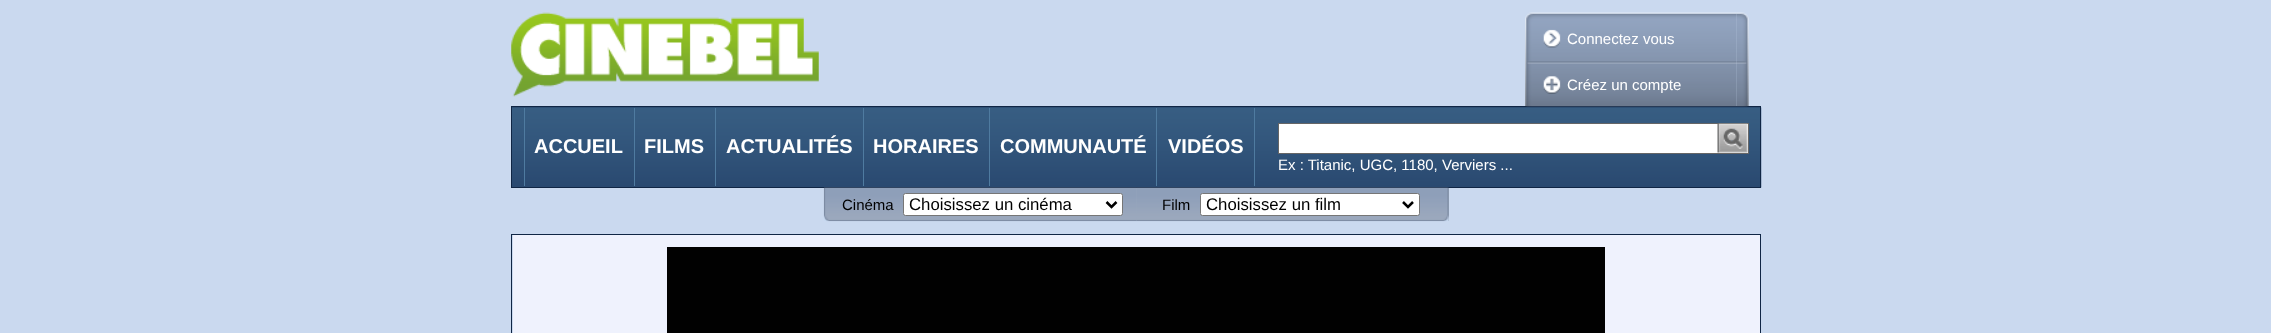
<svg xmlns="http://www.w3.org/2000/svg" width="2271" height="333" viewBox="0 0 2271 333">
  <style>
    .t1 { font: 15px Liberation Sans; fill: #fff; }
    .t2 { font: bold 20px Liberation Sans; fill: #fff; }
    .t3 { font: 15px Liberation Sans; fill: #000; }
    .t4 { font: 16.75px Liberation Sans; fill: #000; }
  </style>
  <rect width="100%" height="100%" fill="#cad9ef"/>
  <image x="511" y="12" width="308" height="85" href="images/1.png"/>
  <rect x="512" y="107" width="1248" height="1" fill="#244269"/>
  <image x="512" y="107" width="1250" height="81" href="images/6.png"/>
  <rect x="511.5" y="106.5" width="1249" height="81" fill="none" stroke="#102645"/>
  <image x="1525" y="12" width="212" height="95" href="images/2.png"/>
  <image x="1543" y="29" width="18" height="19" href="images/3.png"/>
  <text x="1567" y="44" class="t1">Connectez vous</text>
  <image x="1543" y="76" width="18" height="18" href="images/4.png"/>
  <text x="1567" y="90" class="t1">Créez un compte</text>
  <image x="1736" y="12" width="13" height="95" href="images/5.png"/>
  <rect x="634" y="108" width="1" height="78" fill="#4f7ba0"/>
  <rect x="524" y="108" width="1" height="78" fill="#4f7ba0"/>
  <text x="534" y="153" class="t2">ACCUEIL</text>
  <rect x="715" y="108" width="1" height="78" fill="#4f7ba0"/>
  <text x="644" y="153" class="t2">FILMS</text>
  <rect x="863" y="108" width="1" height="78" fill="#4f7ba0"/>
  <text x="726" y="153" class="t2">ACTUALITÉS</text>
  <rect x="989" y="108" width="1" height="78" fill="#4f7ba0"/>
  <text x="873" y="153" class="t2">HORAIRES</text>
  <rect x="1156" y="108" width="1" height="78" fill="#4f7ba0"/>
  <text x="1000" y="153" class="t2">COMMUNAUTÉ</text>
  <rect x="1254" y="108" width="1" height="78" fill="#4f7ba0"/>
  <text x="1168" y="153" class="t2">VIDÉOS</text>
  <rect x="1278.5" y="123.5" width="470" height="30" fill="#fff" stroke="#666"/>
  <image x="1717" y="123" width="31" height="30" href="images/7.png"/>
  <text x="1278" y="170" class="t1">Ex : Titanic, UGC, 1180, Verviers ...</text>
  <image x="823" y="187" width="314" height="35" href="images/8.png"/>
  <text x="842" y="210" class="t3">Cinéma</text>
  <rect x="903.5" y="193.5" width="219" height="22" rx="2" fill="#fff" stroke="#767676"/>
  <path d="M1106.5 202L1111.5 207L1116.5 202" fill="none" stroke="#000" stroke-width="2.5"/>
  <text x="909" y="210" class="t4">Choisissez un cinéma</text>
  <rect x="1136" y="188" width="313" height="33" fill="#9ba8bd"/>
  <image x="1136" y="187" width="313" height="35" href="images/9.png"/>
  <text x="1162" y="210" class="t3">Film</text>
  <rect x="1200.5" y="193.5" width="219" height="22" rx="2" fill="#fff" stroke="#767676"/>
  <path d="M1403 202L1408 207L1413 202" fill="none" stroke="#000" stroke-width="2.5"/>
  <text x="1206" y="210" class="t4">Choisissez un film</text>
  <rect x="511.5" y="234.5" width="1249" height="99" fill="none" stroke="#102645"/>
  <rect x="513" y="235" width="1247" height="98" fill="#eff2fd"/>
  <rect x="667" y="247" width="938" height="86" fill="#010101"/>
</svg>
